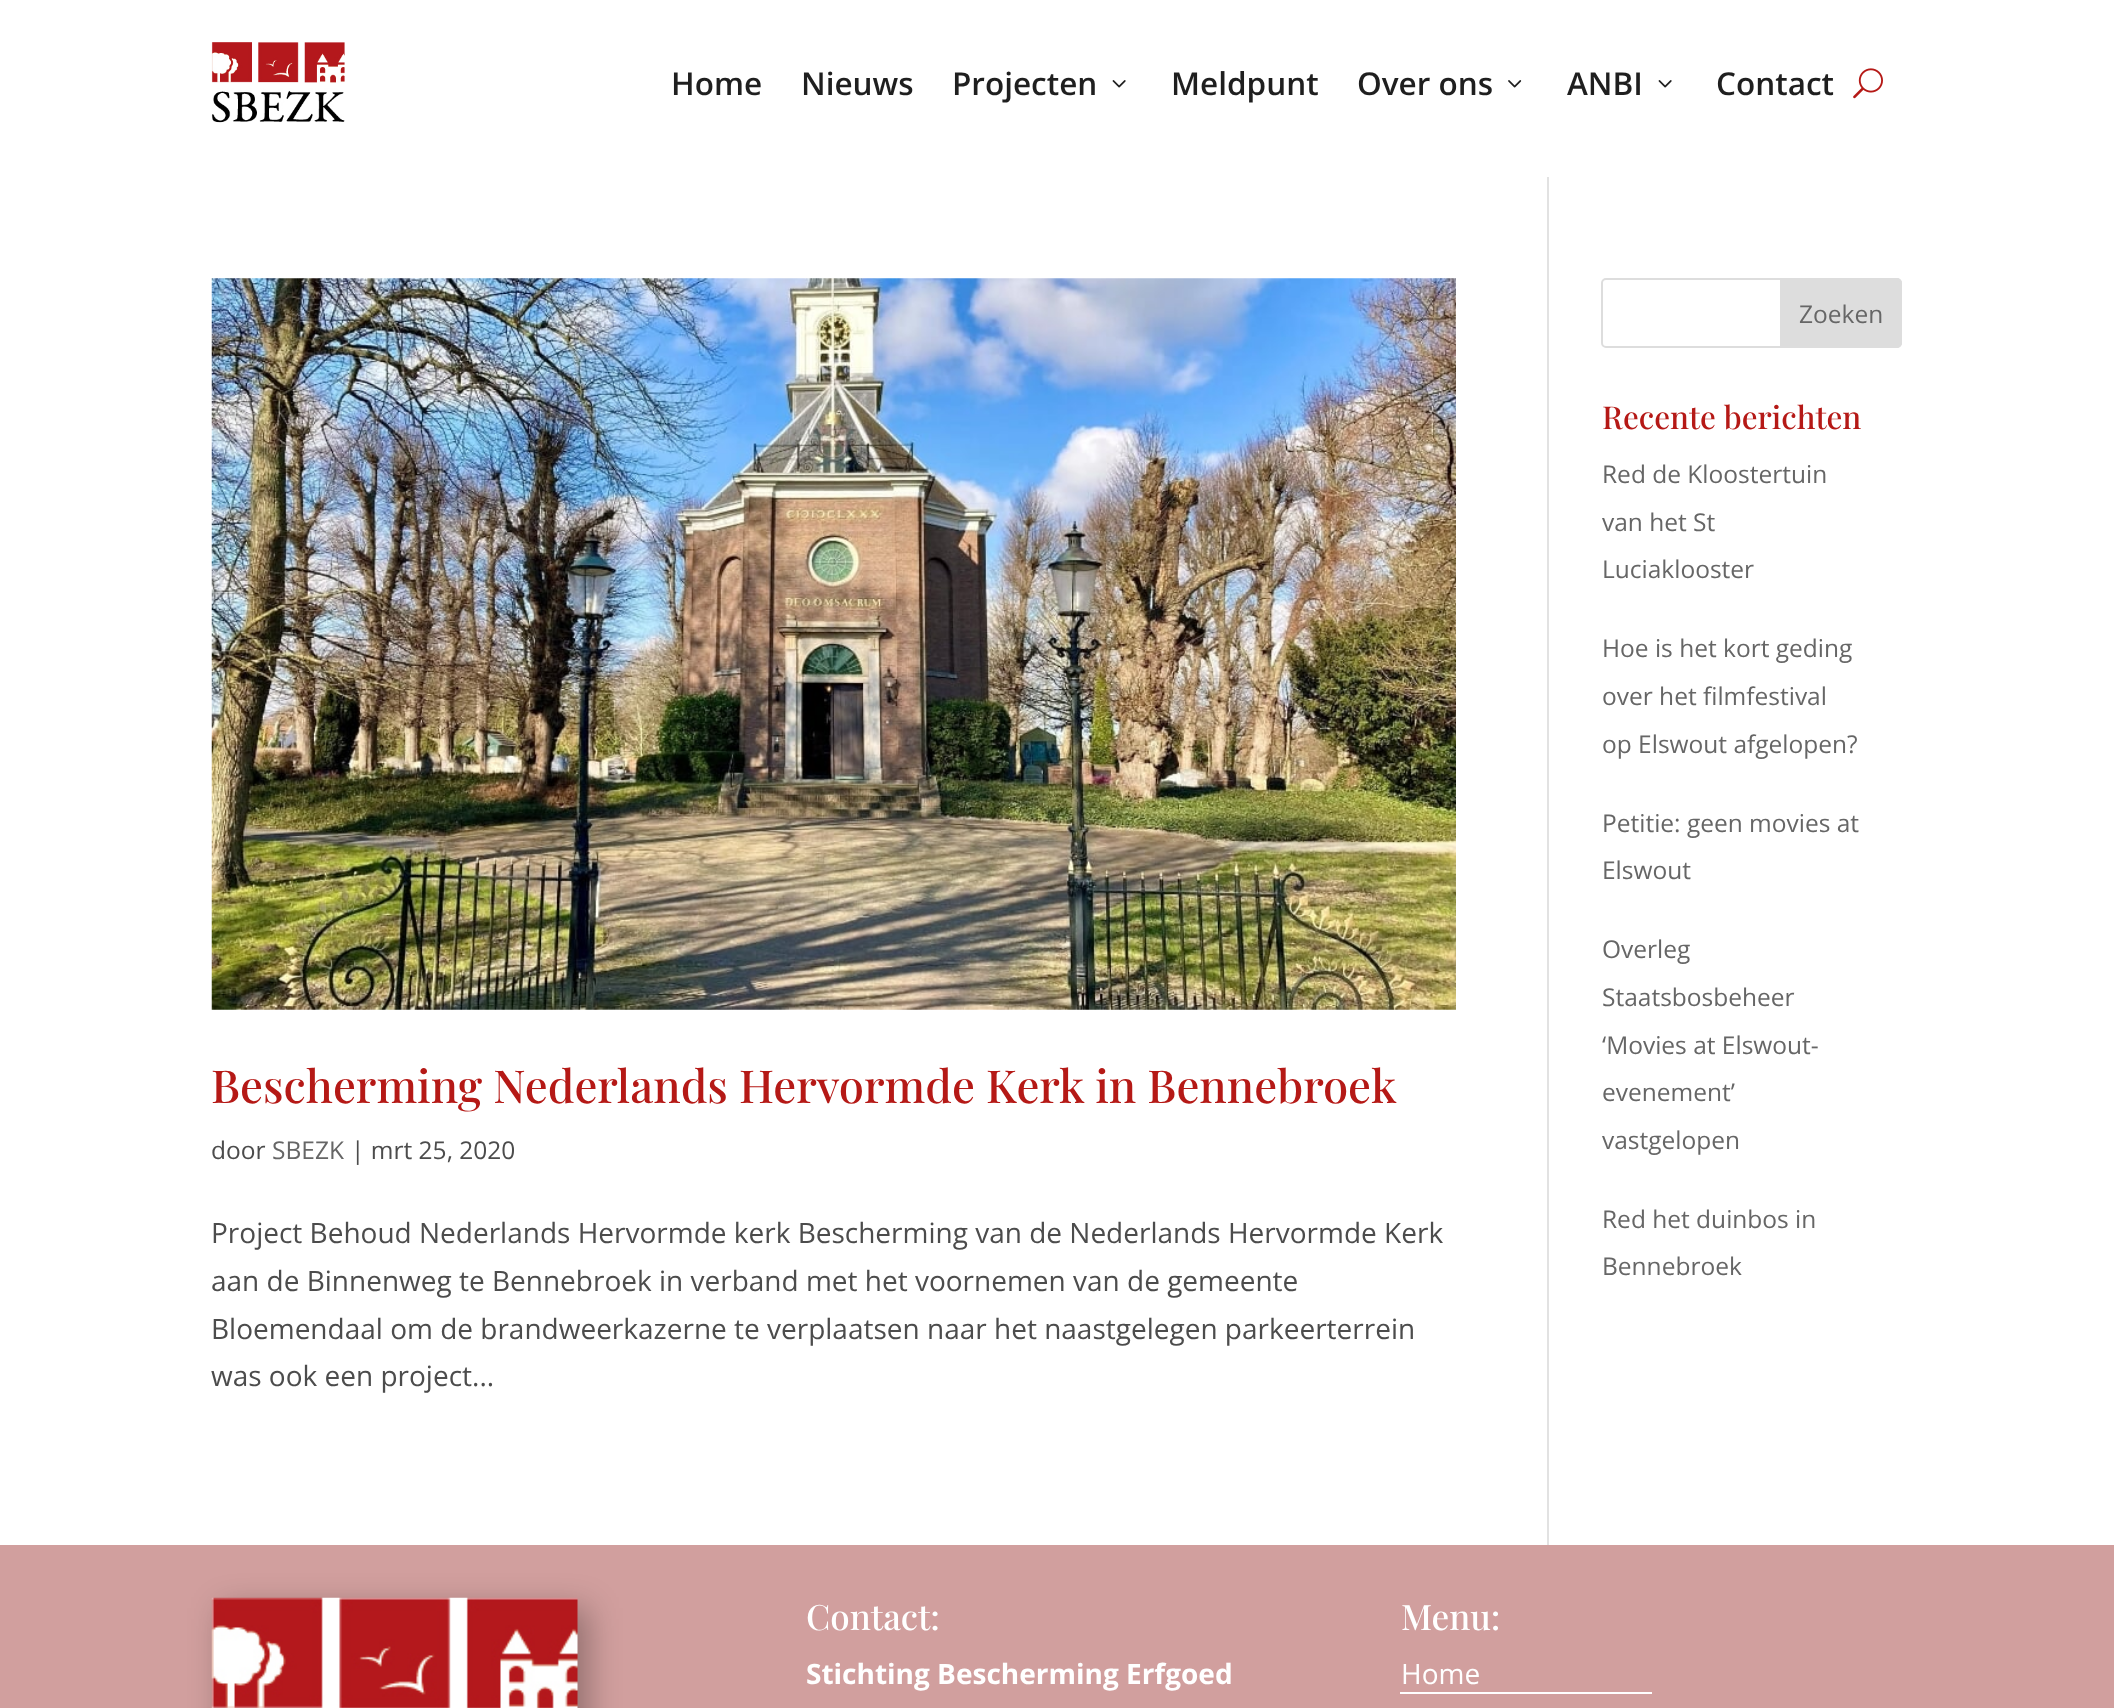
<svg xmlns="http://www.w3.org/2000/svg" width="2114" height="1708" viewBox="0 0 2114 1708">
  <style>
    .t1 { font: 600 31.5px Open Sans; fill: #1f1f1f; }
    .t2 { font: 500 45.5px Playfair Display; fill: #b51916; }
    .t3 { font: 24.5px Open Sans; fill: #4c4c4c; }
    .t4 { font: 24.5px Open Sans; fill: #666; }
    .t5 { font: 28px Open Sans; fill: #4c4c4c; }
    .t6 { font: 500 31.5px Playfair Display; fill: #b51916; }
    .t7 { font: 500 35px Playfair Display; fill: #fff; }
    .t8 { font: bold 28px Open Sans; fill: #fff; }
    .t9 { font: 28px Open Sans; fill: #fff; }
  </style>
  <rect width="100%" height="100%" fill="#fff"/>
  <image x="211" y="42" width="134" height="81" href="images/1.png"/>
  <text x="671" y="95" class="t1">Home</text>
  <text x="801" y="95" class="t1">Nieuws</text>
  <text x="952" y="95" class="t1">Projecten</text>
  <image x="1112" y="80" width="14" height="8" href="images/2.png"/>
  <text x="1171" y="95" class="t1">Meldpunt</text>
  <text x="1357" y="95" class="t1">Over ons</text>
  <image x="1508" y="80" width="14" height="8" href="images/3.png"/>
  <text x="1567" y="95" class="t1">ANBI</text>
  <image x="1658" y="80" width="14" height="8" href="images/2.png"/>
  <text x="1716" y="95" class="t1">Contact</text>
  <image x="1853" y="68" width="30" height="31" href="images/4.png"/>
  <rect x="1547" y="177" width="2" height="1368" fill="#e2e2e2"/>
  <image x="211" y="278" width="1245" height="732" href="images/5.png"/>
  <text x="211" y="1103" class="t2">Bescherming Nederlands Hervormde Kerk in Bennebroek</text>
  <text x="211" y="1159" class="t3">door</text>
  <text x="272" y="1159" class="t4">SBEZK</text>
  <text x="351" y="1159" class="t3">| mrt 25, 2020</text>
  <text x="211" y="1243" class="t5">Project Behoud Nederlands Hervormde kerk Bescherming van de Nederlands Hervormde Kerk</text>
  <text x="211" y="1291" class="t5">aan de Binnenweg te Bennebroek in verband met het voornemen van de gemeente</text>
  <text x="211" y="1339" class="t5">Bloemendaal om de brandweerkazerne te verplaatsen naar het naastgelegen parkeerterrein</text>
  <text x="211" y="1386" class="t5">was ook een project...</text>
  <rect x="1602" y="279" width="299" height="68" rx="4" fill="none" stroke="#ddd" stroke-width="2"/>
  <path d="M1781 279H1897C1899 279 1901 281 1901 283V343C1901 345 1899 347 1897 347H1781Z" fill="#ddd" stroke="#ddd" stroke-width="2"/>
  <text x="1799" y="323" class="t4">Zoeken</text>
  <text x="1602" y="429" class="t6">Recente berichten</text>
  <text x="1602" y="483" class="t4">Red de Kloostertuin</text>
  <text x="1602" y="531" class="t4">van het St</text>
  <text x="1602" y="578" class="t4">Luciaklooster</text>
  <text x="1602" y="657" class="t4">Hoe is het kort geding</text>
  <text x="1602" y="705" class="t4">over het filmfestival</text>
  <text x="1602" y="753" class="t4">op Elswout afgelopen?</text>
  <text x="1602" y="832" class="t4">Petitie: geen movies at</text>
  <text x="1602" y="879" class="t4">Elswout</text>
  <text x="1602" y="958" class="t4">Overleg</text>
  <text x="1602" y="1006" class="t4">Staatsbosbeheer</text>
  <text x="1602" y="1054" class="t4">‘Movies at Elswout-</text>
  <text x="1602" y="1101" class="t4">evenement’</text>
  <text x="1602" y="1149" class="t4">vastgelopen</text>
  <text x="1602" y="1228" class="t4">Red het duinbos in</text>
  <text x="1602" y="1275" class="t4">Bennebroek</text>
  <rect x="0" y="1545" width="2114" height="163" fill="#d19f9e"/>
  <rect x="222" y="1608" width="366" height="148" fill="#0000004d" filter="blur(16px)"/>
  <image x="211" y="1597" width="367" height="111" href="images/6.png"/>
  <text x="806" y="1630" class="t7">Contact:</text>
  <text x="806" y="1684" class="t8">Stichting Bescherming Erfgoed</text>
  <text x="1401" y="1630" class="t7">Menu:</text>
  <text x="1401" y="1684" class="t9">Home</text>
  <rect x="1400" y="1692" width="252" height="2" fill="#fff"/>
</svg>
